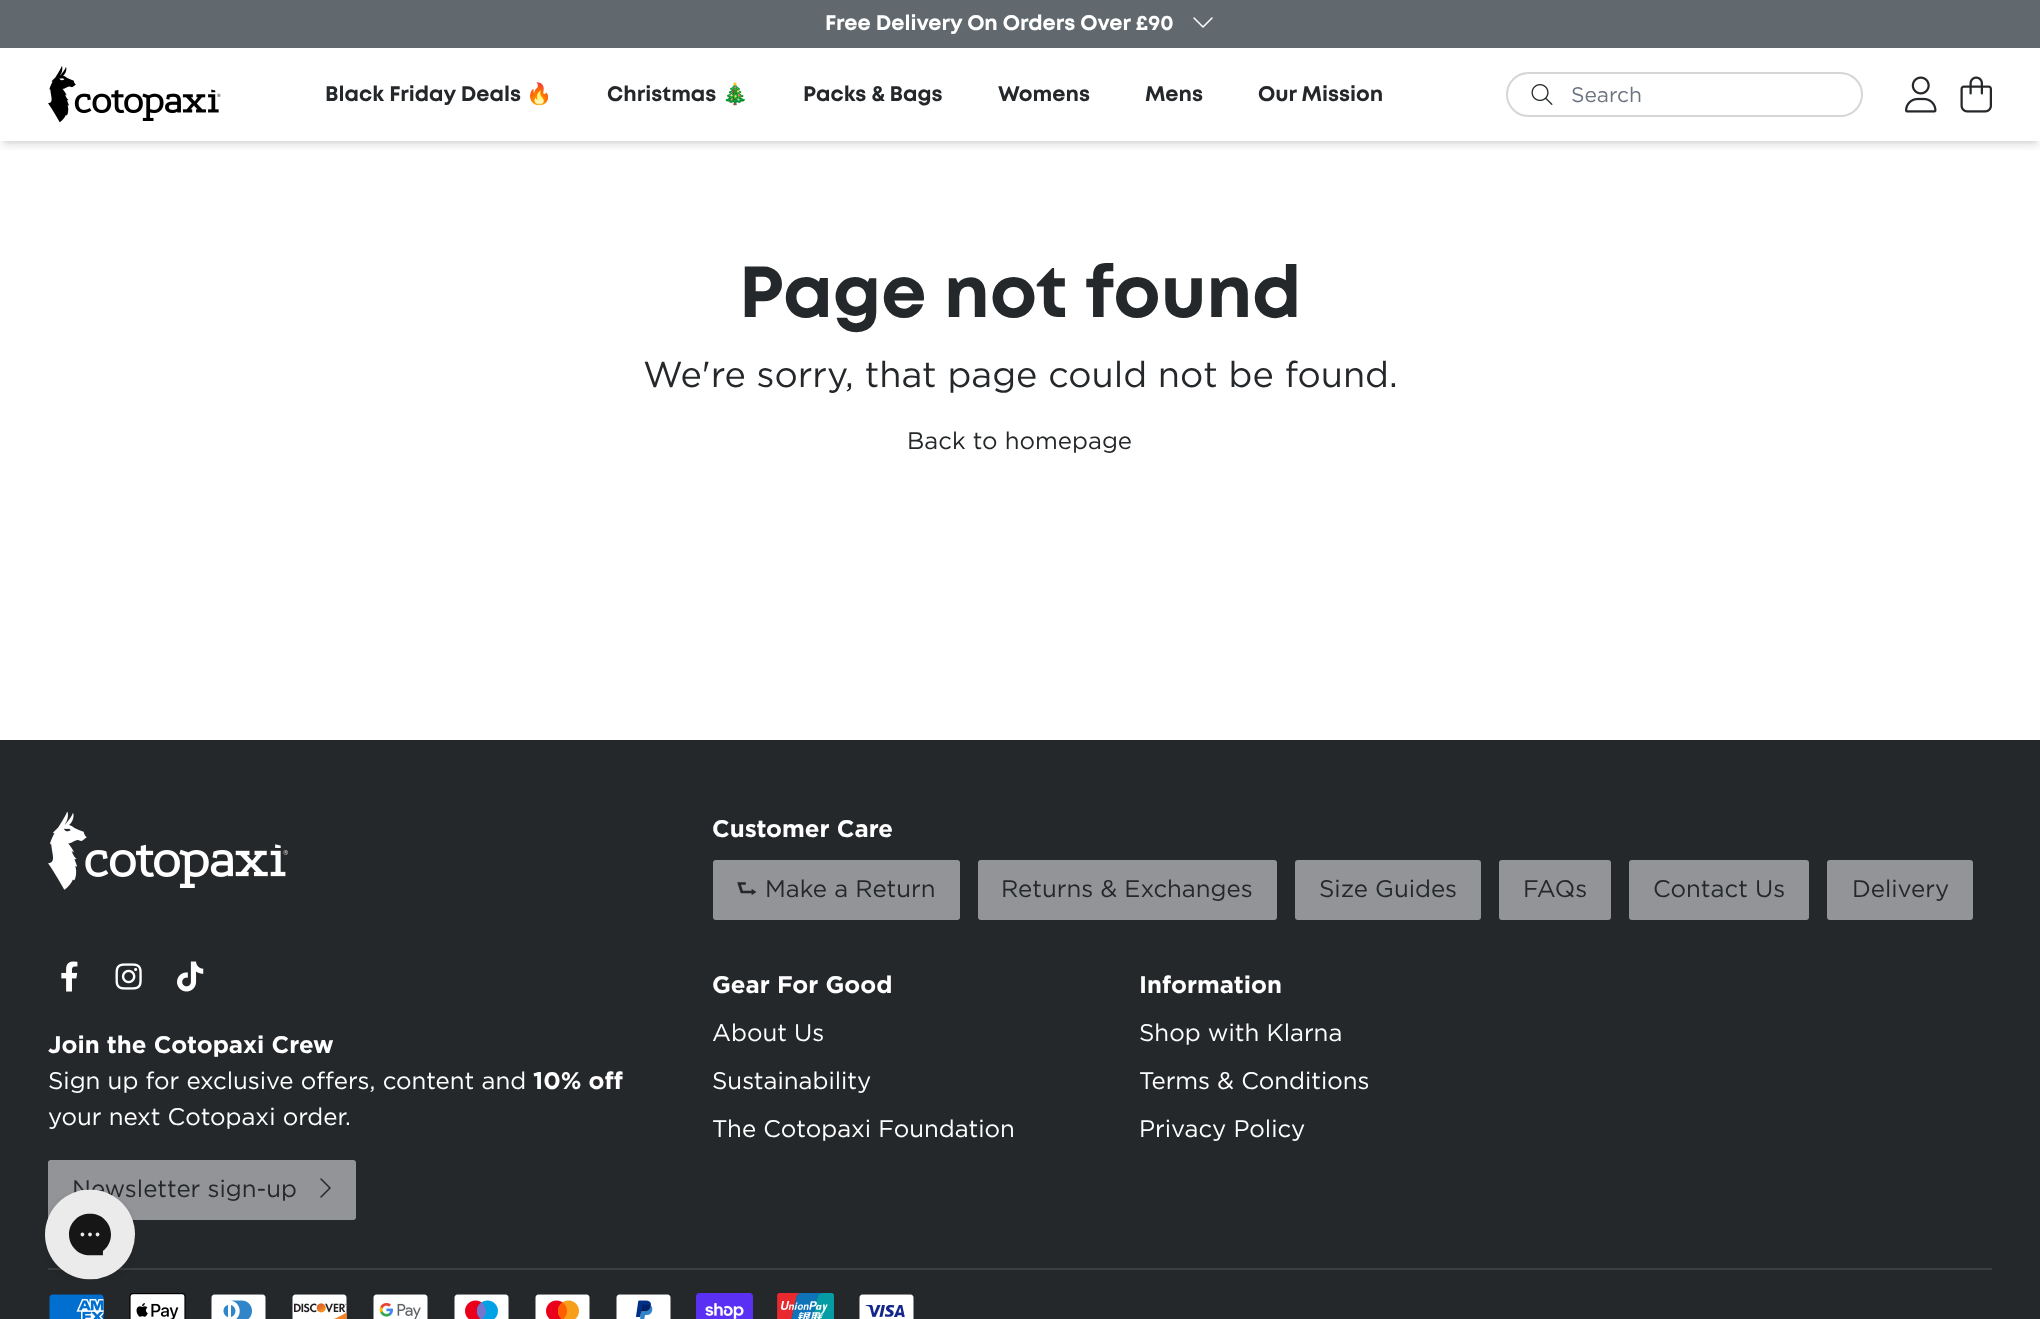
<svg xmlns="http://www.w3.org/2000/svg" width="2040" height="1319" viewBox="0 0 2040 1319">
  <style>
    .t1 { font: bold 21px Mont; fill: #fff; }
    .t2 { font: bold 21px Mont; fill: #25282a; }
    .t3 { font: bold 21px Noto Color Emoji; fill: #25282a; }
    .t4 { font: 21px Gotham; fill: #6b7280; }
    .t5 { font: bold 72px Mont; fill: #25282a; }
    .t6 { font: 36px Gotham; fill: #25282a; }
    .t7 { font: 24px Gotham; fill: #25282a; }
    .t8 { font: bold 24px Gotham; fill: #fff; }
    .t9 { font: 24px Gotham; fill: #fff; }
    .t10 { font: 24px 'Noto Sans Symbols 2'; fill: #25282a; }
  </style>
  <defs>
    <clipPath id="clip1"><rect x="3" y="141" width="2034" height="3"/></clipPath>
    <clipPath id="clip2"><rect x="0" y="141" width="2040" height="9"/></clipPath>
  </defs>
  <rect width="100%" height="100%" fill="#fff"/>
  <g clip-path="url(#clip1)">
    <rect x="3" y="6" width="2034" height="135" fill="#0000001a" filter="blur(3px)"/>
  </g>
  <g clip-path="url(#clip2)">
    <rect x="2" y="8" width="2037" height="138" fill="#0000001a" filter="blur(4.5px)"/>
  </g>
  <rect x="0" y="0" width="2040" height="48" fill="#61696e"/>
  <text x="825" y="30" class="t1">Free Delivery On Orders Over £90</text>
  <image x="1193" y="17" width="20" height="11" href="images/1.png"/>
  <image x="48" y="66" width="173" height="57" href="images/2.png"/>
  <text x="325" y="101" class="t2">Black Friday Deals</text>
  <text x="526" y="101" class="t3">🔥</text>
  <text x="607" y="101" class="t2">Christmas</text>
  <text x="722" y="101" class="t3">🎄</text>
  <text x="803" y="101" class="t2">Packs &amp; Bags</text>
  <text x="998" y="101" class="t2">Womens</text>
  <text x="1145" y="101" class="t2">Mens</text>
  <text x="1258" y="101" class="t2">Our Mission</text>
  <rect x="1507" y="73" width="355" height="43" rx="21.5" fill="none" stroke="#d6d6d6" stroke-width="2"/>
  <image x="1531" y="84" width="22" height="21" href="images/3.png"/>
  <text x="1571" y="102" class="t4">Search</text>
  <image x="1905" y="76" width="32" height="37" href="images/4.png"/>
  <image x="1960" y="76" width="32" height="37" href="images/5.png"/>
  <text x="739" y="317" class="t5">Page not found</text>
  <text x="643" y="387" class="t6">We're sorry, that page could not be found.</text>
  <text x="907" y="449" class="t7">Back to homepage</text>
  <rect x="0" y="740" width="2040" height="579" fill="#25282a"/>
  <image x="48" y="812" width="240" height="78" href="images/6.png"/>
  <image x="61" y="961" width="17" height="31" href="images/7.png"/>
  <image x="115" y="963" width="27" height="27" href="images/8.png"/>
  <image x="177" y="961" width="27" height="31" href="images/9.png"/>
  <text x="48" y="1053" class="t8">Join the Cotopaxi Crew</text>
  <text x="48" y="1089" class="t9">Sign up for exclusive offers, content and</text>
  <text x="533" y="1089" class="t8">10% off</text>
  <text x="48" y="1125" class="t9">your next Cotopaxi order.</text>
  <rect x="48" y="1160" width="308" height="60" rx="3" fill="#939497"/>
  <text x="72" y="1197" class="t7">Newsletter sign-up</text>
  <image x="320" y="1178" width="11" height="20" href="images/10.png"/>
  <text x="712" y="837" class="t8">Customer Care</text>
  <rect x="713" y="860" width="247" height="60" rx="3" fill="#939497"/>
  <text x="736" y="897" class="t10">⮑</text>
  <text x="765" y="897" class="t7">Make a Return</text>
  <rect x="978" y="860" width="299" height="60" rx="3" fill="#939497"/>
  <text x="1001" y="897" class="t7">Returns &amp; Exchanges</text>
  <rect x="1295" y="860" width="186" height="60" rx="3" fill="#939497"/>
  <text x="1319" y="897" class="t7">Size Guides</text>
  <rect x="1499" y="860" width="112" height="60" rx="3" fill="#939497"/>
  <text x="1523" y="897" class="t7">FAQs</text>
  <rect x="1629" y="860" width="180" height="60" rx="3" fill="#939497"/>
  <text x="1653" y="897" class="t7">Contact Us</text>
  <rect x="1827" y="860" width="146" height="60" rx="3" fill="#939497"/>
  <text x="1852" y="897" class="t7">Delivery</text>
  <text x="712" y="993" class="t8">Gear For Good</text>
  <text x="712" y="1041" class="t9">About Us</text>
  <text x="712" y="1089" class="t9">Sustainability</text>
  <text x="712" y="1137" class="t9">The Cotopaxi Foundation</text>
  <text x="1139" y="993" class="t8">Information</text>
  <text x="1139" y="1041" class="t9">Shop with Klarna</text>
  <text x="1139" y="1089" class="t9">Terms &amp; Conditions</text>
  <text x="1139" y="1137" class="t9">Privacy Policy</text>
  <rect x="48" y="1268" width="1944" height="2" fill="#3b3e3f"/>
  <image x="49" y="1294" width="55" height="25" href="images/11.png"/>
  <image x="129" y="1293" width="57" height="26" href="images/12.png"/>
  <image x="211" y="1294" width="55" height="25" href="images/13.png"/>
  <image x="292" y="1294" width="55" height="25" href="images/14.png"/>
  <image x="373" y="1294" width="55" height="25" href="images/15.png"/>
  <image x="454" y="1294" width="55" height="25" href="images/16.png"/>
  <image x="535" y="1294" width="55" height="25" href="images/17.png"/>
  <image x="616" y="1294" width="55" height="25" href="images/18.png"/>
  <image x="696" y="1293" width="57" height="26" href="images/19.png"/>
  <image x="777" y="1293" width="57" height="26" href="images/20.png"/>
  <image x="859" y="1294" width="55" height="25" href="images/21.png"/>
  <image x="45" y="1189" width="90" height="91" href="images/22.png"/>
</svg>
